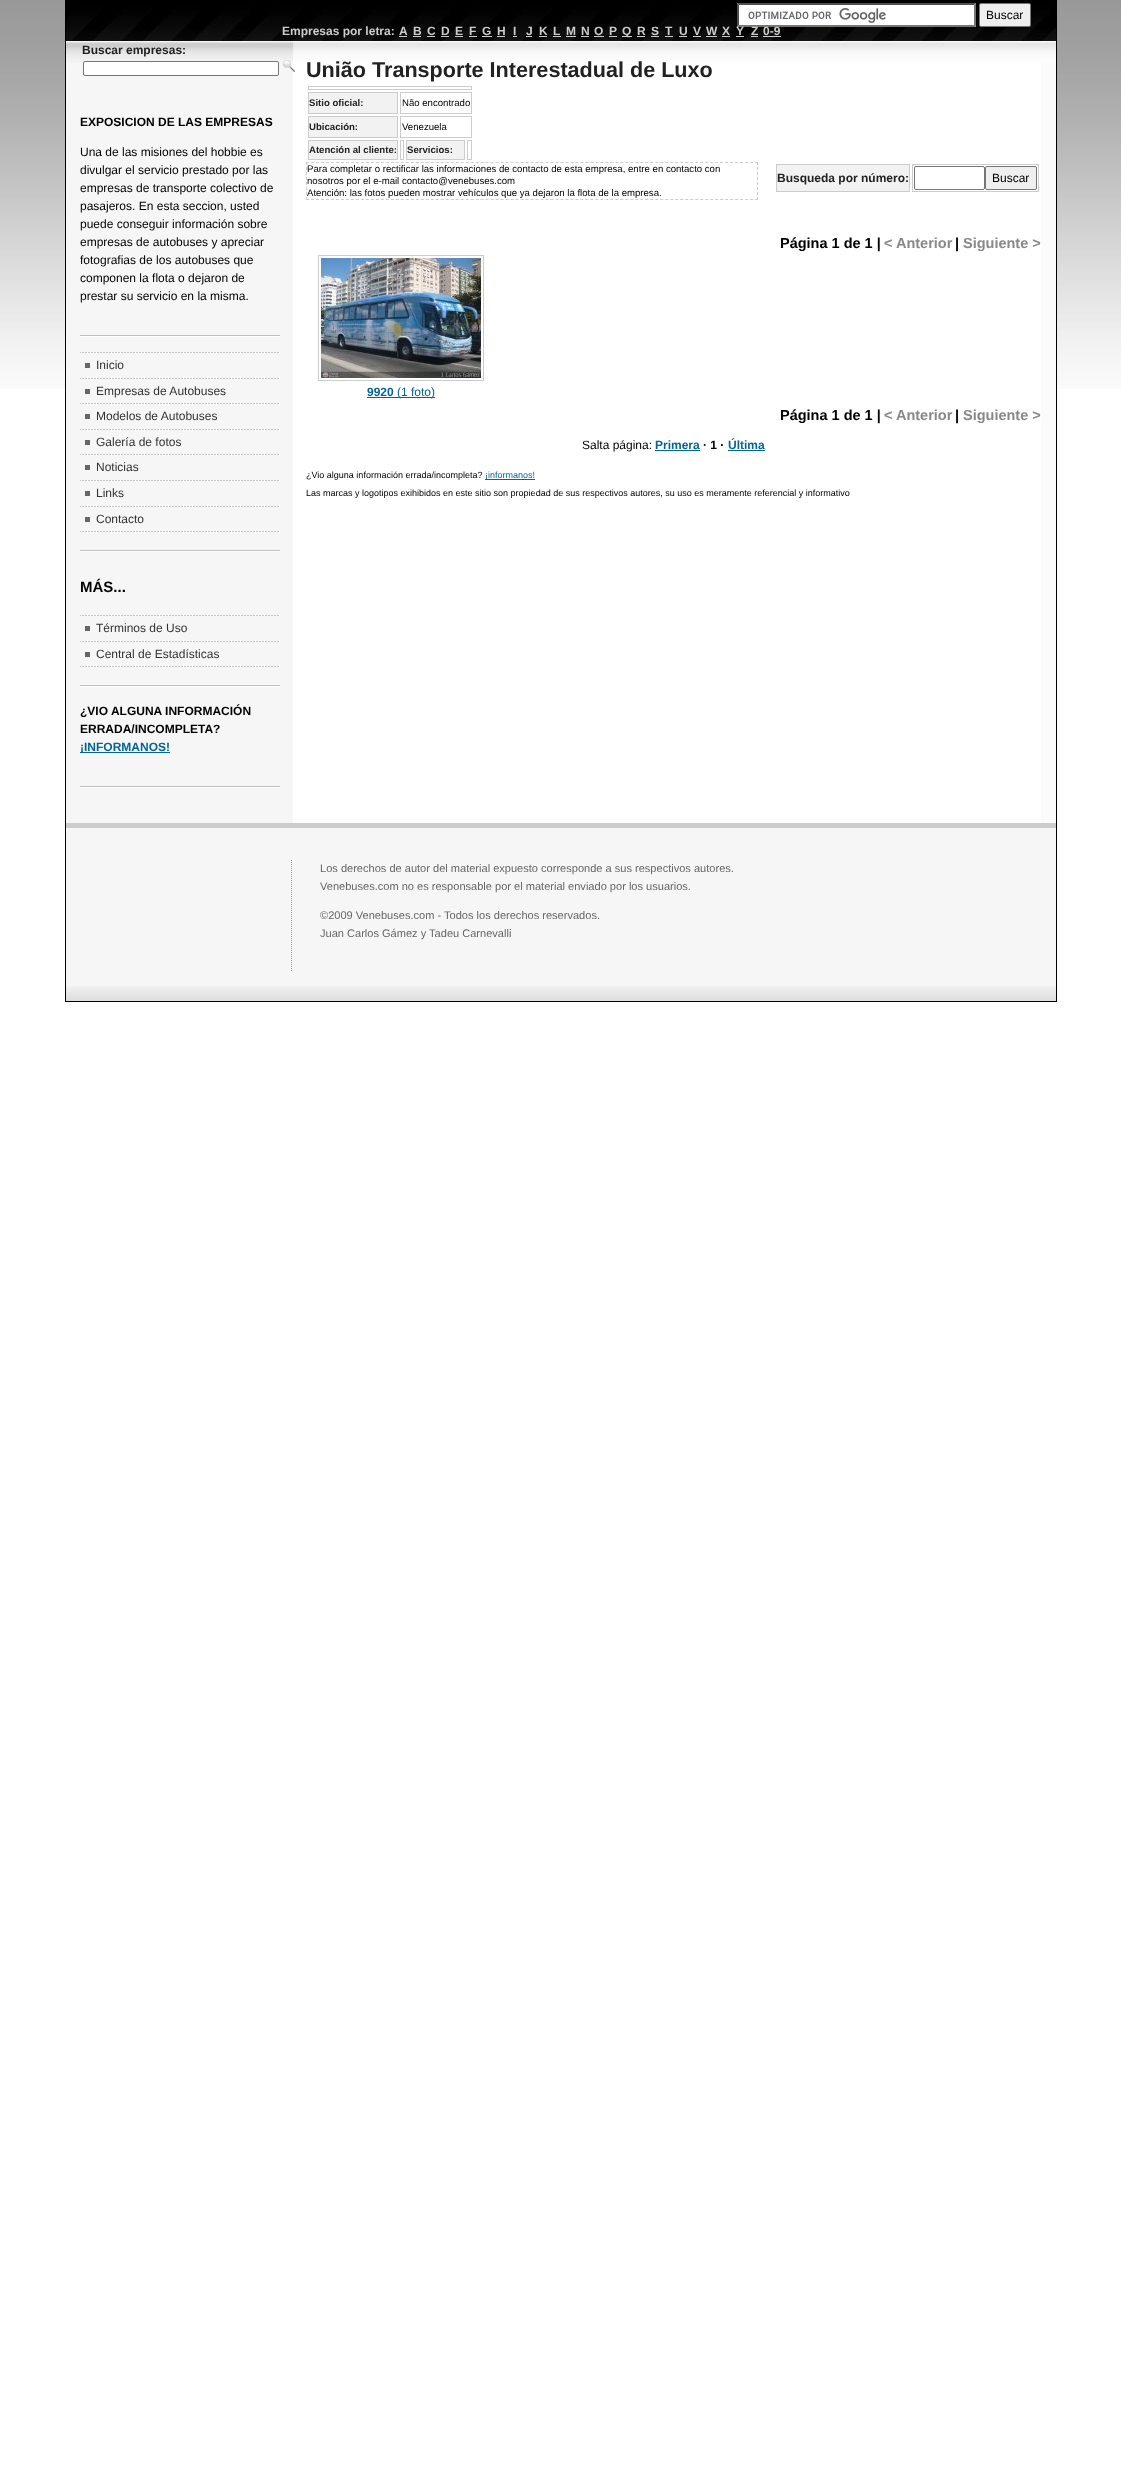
<svg xmlns="http://www.w3.org/2000/svg" width="1121" height="2492" viewBox="0 0 1121 2492">
  <style>
    .t1 { font: 12px Liberation Sans; fill: #000; }
    .t2 { font: bold 12px Liberation Sans; fill: #ccc; }
    .t3 { font: bold 12px Liberation Sans; fill: #222; }
    .t4 { font: bold 12px Liberation Sans; fill: #000; }
    .t5 { font: 12px Liberation Sans; fill: #333; }
    .t6 { font: bold 15px Liberation Sans; fill: #000; }
    .t7 { font: bold 12px Liberation Sans; fill: #069; }
    .t8 { font: bold 21.6px Liberation Sans; fill: #222; }
    .t9 { font: bold 9.6px Liberation Sans; fill: #222; }
    .t10 { font: 9.6px Liberation Sans; fill: #000; }
    .t11 { font: bold 14.5px Liberation Sans; fill: #000; }
    .t12 { font: bold 14.5px Liberation Sans; fill: #888; }
    .t13 { font: 12px Liberation Sans; fill: #069; }
    .t14 { font: 9px Liberation Sans; fill: #000; }
    .t15 { font: 9px Liberation Sans; fill: #069; }
    .t16 { font: 11.05px Liberation Sans; fill: #666; }
  </style>
  <rect width="100%" height="100%" fill="#fff"/>
  <image x="0" y="0" width="1121" height="389" href="images/1.png"/>
  <rect x="1041" y="41" width="15" height="782" fill="#fbfbfb"/>
  <rect x="65.5" y="0.5" width="991" height="1001" fill="none" stroke="#000"/>
  <image x="66" y="1" width="990" height="40" href="images/2.png"/>
  <rect x="737" y="3" width="239" height="24" fill="#fff"/>
  <image x="748" y="8" width="138" height="15" href="images/3.png"/>
  <path d="M737 3H976L974 5H739Z" fill="#4f4f4f"/>
  <path d="M976 3V27L974 25V5Z" fill="#767676"/>
  <path d="M976 27H737L739 25H974Z" fill="#767676"/>
  <path d="M737 27V3L739 5V25Z" fill="#4f4f4f"/>
  <rect x="979.5" y="3.5" width="51" height="23" rx="1.5" fill="#efefef" stroke="#767676"/>
  <text x="986" y="19" class="t1">Buscar</text>
  <text x="282" y="35" class="t2">Empresas por letra:</text>
  <text x="399" y="35" class="t2">A</text>
  <rect x="399" y="36" width="8" height="1" fill="#ccc"/>
  <text x="413" y="35" class="t2">B</text>
  <rect x="413" y="36" width="8" height="1" fill="#ccc"/>
  <text x="427" y="35" class="t2">C</text>
  <rect x="427" y="36" width="8" height="1" fill="#ccc"/>
  <text x="441" y="35" class="t2">D</text>
  <rect x="441" y="36" width="8" height="1" fill="#ccc"/>
  <text x="455" y="35" class="t2">E</text>
  <rect x="455" y="36" width="8" height="1" fill="#ccc"/>
  <text x="469" y="35" class="t2">F</text>
  <rect x="469" y="36" width="8" height="1" fill="#ccc"/>
  <text x="482" y="35" class="t2">G</text>
  <rect x="482" y="36" width="10" height="1" fill="#ccc"/>
  <text x="497" y="35" class="t2">H</text>
  <rect x="497" y="36" width="8" height="1" fill="#ccc"/>
  <text x="513" y="35" class="t2">I</text>
  <rect x="513" y="36" width="4" height="1" fill="#ccc"/>
  <text x="526" y="35" class="t2">J</text>
  <rect x="526" y="36" width="6" height="1" fill="#ccc"/>
  <text x="539" y="35" class="t2">K</text>
  <rect x="539" y="36" width="8" height="1" fill="#ccc"/>
  <text x="553" y="35" class="t2">L</text>
  <rect x="553" y="36" width="8" height="1" fill="#ccc"/>
  <text x="566" y="35" class="t2">M</text>
  <rect x="566" y="36" width="10" height="1" fill="#ccc"/>
  <text x="581" y="35" class="t2">N</text>
  <rect x="581" y="36" width="8" height="1" fill="#ccc"/>
  <text x="594" y="35" class="t2">O</text>
  <rect x="594" y="36" width="10" height="1" fill="#ccc"/>
  <text x="609" y="35" class="t2">P</text>
  <rect x="609" y="36" width="8" height="1" fill="#ccc"/>
  <rect x="622" y="36" width="10" height="1" fill="#ccc"/>
  <text x="622" y="35" class="t2">Q</text>
  <text x="637" y="35" class="t2">R</text>
  <rect x="637" y="36" width="8" height="1" fill="#ccc"/>
  <text x="651" y="35" class="t2">S</text>
  <rect x="651" y="36" width="8" height="1" fill="#ccc"/>
  <text x="665" y="35" class="t2">T</text>
  <rect x="665" y="36" width="8" height="1" fill="#ccc"/>
  <text x="679" y="35" class="t2">U</text>
  <rect x="679" y="36" width="8" height="1" fill="#ccc"/>
  <text x="693" y="35" class="t2">V</text>
  <rect x="693" y="36" width="8" height="1" fill="#ccc"/>
  <text x="706" y="35" class="t2">W</text>
  <rect x="706" y="36" width="11" height="1" fill="#ccc"/>
  <text x="722" y="35" class="t2">X</text>
  <rect x="722" y="36" width="8" height="1" fill="#ccc"/>
  <text x="736" y="35" class="t2">Y</text>
  <rect x="736" y="36" width="8" height="1" fill="#ccc"/>
  <text x="751" y="35" class="t2">Z</text>
  <rect x="751" y="36" width="7" height="1" fill="#ccc"/>
  <text x="763" y="35" class="t2">0-9</text>
  <rect x="763" y="36" width="18" height="1" fill="#ccc"/>
  <rect x="66" y="41" width="14" height="782" fill="#f6f6f6"/>
  <image x="66" y="42" width="990" height="20" href="images/5.png"/>
  <image x="80" y="41" width="961" height="21" href="images/7.png"/>
  <text x="82" y="54" class="t3">Buscar empresas:</text>
  <image x="80" y="62" width="961" height="761" href="images/6.png"/>
  <rect x="83.5" y="61.5" width="195" height="14" rx="1.5" fill="#fff" stroke="#767676"/>
  <image x="283" y="60" width="12" height="12" href="images/4.png"/>
  <image x="80" y="335" width="200" height="2" href="images/8.png"/>
  <text x="80" y="126" class="t4">EXPOSICION DE LAS EMPRESAS</text>
  <text x="80" y="156" class="t1">Una de las misiones del hobbie es</text>
  <text x="80" y="174" class="t1">divulgar el servicio prestado por las</text>
  <text x="80" y="192" class="t1">empresas de transporte colectivo de</text>
  <text x="80" y="210" class="t1">pasajeros. En esta seccion, usted</text>
  <text x="80" y="228" class="t1">puede conseguir información sobre</text>
  <text x="80" y="246" class="t1">empresas de autobuses y apreciar</text>
  <text x="80" y="264" class="t1">fotografias de los autobuses que</text>
  <text x="80" y="282" class="t1">componen la flota o dejaron de</text>
  <text x="80" y="300" class="t1">prestar su servicio en la misma.</text>
  <image x="80" y="550" width="200" height="2" href="images/8.png"/>
  <image x="80" y="352" width="199" height="1" href="images/9.png"/>
  <image x="80" y="378" width="199" height="1" href="images/9.png"/>
  <text x="96" y="369" class="t5">Inicio</text>
  <rect x="85" y="363" width="5" height="5" fill="#666"/>
  <image x="80" y="403" width="199" height="1" href="images/9.png"/>
  <text x="96" y="395" class="t5">Empresas de Autobuses</text>
  <rect x="85" y="389" width="5" height="5" fill="#666"/>
  <image x="80" y="429" width="199" height="1" href="images/9.png"/>
  <text x="96" y="420" class="t5">Modelos de Autobuses</text>
  <rect x="85" y="414" width="5" height="5" fill="#666"/>
  <image x="80" y="454" width="199" height="1" href="images/9.png"/>
  <text x="96" y="446" class="t5">Galería de fotos</text>
  <rect x="85" y="440" width="5" height="5" fill="#666"/>
  <image x="80" y="480" width="199" height="1" href="images/9.png"/>
  <text x="96" y="471" class="t5">Noticias</text>
  <rect x="85" y="465" width="5" height="5" fill="#666"/>
  <image x="80" y="506" width="199" height="1" href="images/9.png"/>
  <text x="96" y="497" class="t5">Links</text>
  <rect x="85" y="491" width="5" height="5" fill="#666"/>
  <image x="80" y="531" width="199" height="1" href="images/9.png"/>
  <text x="96" y="523" class="t5">Contacto</text>
  <rect x="85" y="517" width="5" height="5" fill="#666"/>
  <image x="80" y="685" width="200" height="2" href="images/8.png"/>
  <text x="80" y="592" class="t6">MÁS...</text>
  <image x="80" y="615" width="199" height="1" href="images/9.png"/>
  <image x="80" y="641" width="199" height="1" href="images/9.png"/>
  <text x="96" y="632" class="t5">Términos de Uso</text>
  <rect x="85" y="626" width="5" height="5" fill="#666"/>
  <image x="80" y="666" width="199" height="1" href="images/9.png"/>
  <text x="96" y="658" class="t5">Central de Estadísticas</text>
  <rect x="85" y="652" width="5" height="5" fill="#666"/>
  <image x="80" y="786" width="200" height="2" href="images/8.png"/>
  <text x="80" y="715" class="t4">¿VIO ALGUNA INFORMACIÓN</text>
  <text x="80" y="733" class="t4">ERRADA/INCOMPLETA?</text>
  <rect x="80" y="752" width="90" height="1" fill="#069"/>
  <text x="80" y="751" class="t7">¡INFORMANOS!</text>
  <text x="306" y="77" class="t8">União Transporte Interestadual de Luxo</text>
  <rect x="308.5" y="86.5" width="163" height="3" fill="none" stroke="#ccc"/>
  <rect x="308.5" y="92.5" width="89" height="21" fill="#f2f2f2" stroke="#ccc"/>
  <text x="309" y="106" class="t9">Sitio oficial:</text>
  <rect x="400.5" y="92.5" width="71" height="21" fill="none" stroke="#ccc"/>
  <text x="402" y="106" class="t10">Não encontrado</text>
  <rect x="308.5" y="116.5" width="89" height="21" fill="#f2f2f2" stroke="#ccc"/>
  <text x="309" y="130" class="t9">Ubicación:</text>
  <rect x="400.5" y="116.5" width="71" height="21" fill="none" stroke="#ccc"/>
  <text x="402" y="130" class="t10">Venezuela</text>
  <rect x="308.5" y="140.5" width="89" height="19" fill="#f2f2f2" stroke="#ccc"/>
  <text x="309" y="153" class="t9">Atención al cliente:</text>
  <rect x="400.5" y="140.5" width="3" height="19" fill="none" stroke="#ccc"/>
  <rect x="406.5" y="140.5" width="58" height="19" fill="#f2f2f2" stroke="#ccc"/>
  <text x="407" y="153" class="t9">Servicios:</text>
  <rect x="467.5" y="140.5" width="4" height="19" fill="none" stroke="#ccc"/>
  <path d="M306 162.5H758" fill="none" stroke="#ccc" stroke-dasharray="3 1.99"/>
  <path d="M757.5 162V200" fill="none" stroke="#ccc" stroke-dasharray="3 2"/>
  <path d="M306 199.5H758" fill="none" stroke="#ccc" stroke-dasharray="3 1.99"/>
  <path d="M306.5 162V200" fill="none" stroke="#ccc" stroke-dasharray="3 2"/>
  <text x="307" y="172" class="t10">Para completar o rectificar las informaciones de contacto de esta empresa, entre en contacto con</text>
  <text x="307" y="184" class="t10">nosotros por el e-mail contacto@venebuses.com</text>
  <text x="307" y="196" class="t10">Atención: las fotos pueden mostrar vehículos que ya dejaron la flota de la empresa.</text>
  <rect x="776.5" y="164.5" width="133" height="27" fill="#f2f2f2" stroke="#ccc"/>
  <text x="777" y="182" class="t3">Busqueda por número:</text>
  <rect x="912.5" y="164.5" width="126" height="27" fill="none" stroke="#ccc"/>
  <rect x="914.5" y="166.5" width="70" height="23" rx="1.5" fill="none" stroke="#767676"/>
  <rect x="985.5" y="166.5" width="51" height="23" rx="1.5" fill="#efefef" stroke="#767676"/>
  <text x="992" y="182" class="t1">Buscar</text>
  <text x="780" y="248" class="t11">Página 1 de 1 |</text>
  <text x="884" y="248" class="t12">&lt; Anterior</text>
  <text x="955" y="248" class="t11">|</text>
  <text x="963" y="248" class="t12">Siguiente &gt;</text>
  <rect x="318.5" y="255.5" width="165" height="125" fill="none" stroke="#ccc"/>
  <image x="321" y="258" width="160" height="120" href="images/10.png"/>
  <text x="367" y="396" class="t7">9920</text>
  <rect x="367" y="397" width="68" height="1" fill="#069"/>
  <text x="397" y="396" class="t13">(1 foto)</text>
  <text x="780" y="420" class="t11">Página 1 de 1 |</text>
  <text x="884" y="420" class="t12">&lt; Anterior</text>
  <text x="955" y="420" class="t11">|</text>
  <text x="963" y="420" class="t12">Siguiente &gt;</text>
  <text x="582" y="449" class="t1">Salta página:</text>
  <text x="655" y="449" class="t7">Primera</text>
  <rect x="655" y="450" width="45" height="1" fill="#069"/>
  <text x="703" y="449" class="t4">· 1 ·</text>
  <text x="728" y="449" class="t7">Última</text>
  <rect x="728" y="450" width="37" height="1" fill="#069"/>
  <text x="306" y="478" class="t14">¿Vio alguna información errada/incompleta?</text>
  <rect x="485" y="479" width="50" height="1" fill="#069"/>
  <text x="485" y="478" class="t15">¡informanos!</text>
  <text x="306" y="496" class="t14">Las marcas y logotipos exihibidos en este sitio son propiedad de sus respectivos autores, su uso es meramente referencial y informativo</text>
  <rect x="66" y="828" width="990" height="158" fill="#f6f6f6"/>
  <image x="66" y="986" width="990" height="15" href="images/11.png"/>
  <rect x="66" y="823" width="990" height="5" fill="#ccc"/>
  <image x="291" y="860" width="1" height="111" href="images/12.png"/>
  <text x="320" y="872" class="t16">Los derechos de autor del material expuesto corresponde a sus respectivos autores.</text>
  <text x="320" y="890" class="t16">Venebuses.com no es responsable por el material enviado por los usuarios.</text>
  <text x="320" y="919" class="t16">©2009 Venebuses.com - Todos los derechos reservados.</text>
  <text x="320" y="937" class="t16">Juan Carlos Gámez y Tadeu Carnevalli</text>
</svg>
